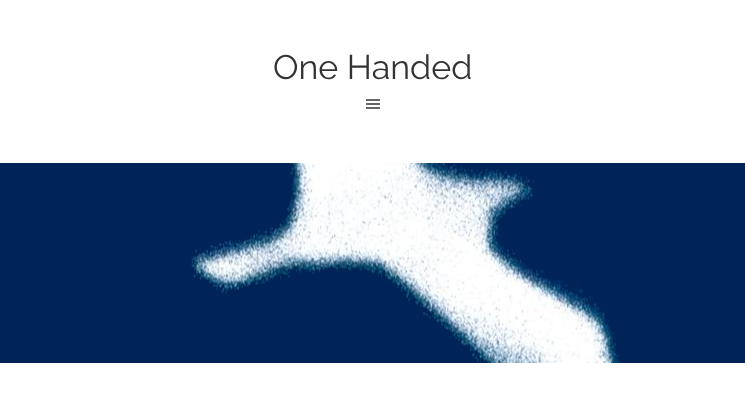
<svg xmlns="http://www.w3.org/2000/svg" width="745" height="398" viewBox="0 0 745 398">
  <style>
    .t1 { font: 34px Raleway; fill: #333; }
  </style>
  <rect width="100%" height="100%" fill="#fff"/>
  <text x="273" y="79" class="t1">One Handed</text>
  <image x="366" y="99" width="14" height="10" href="images/1.png"/>
  <image x="0" y="163" width="745" height="200" href="images/2.png"/>
</svg>
